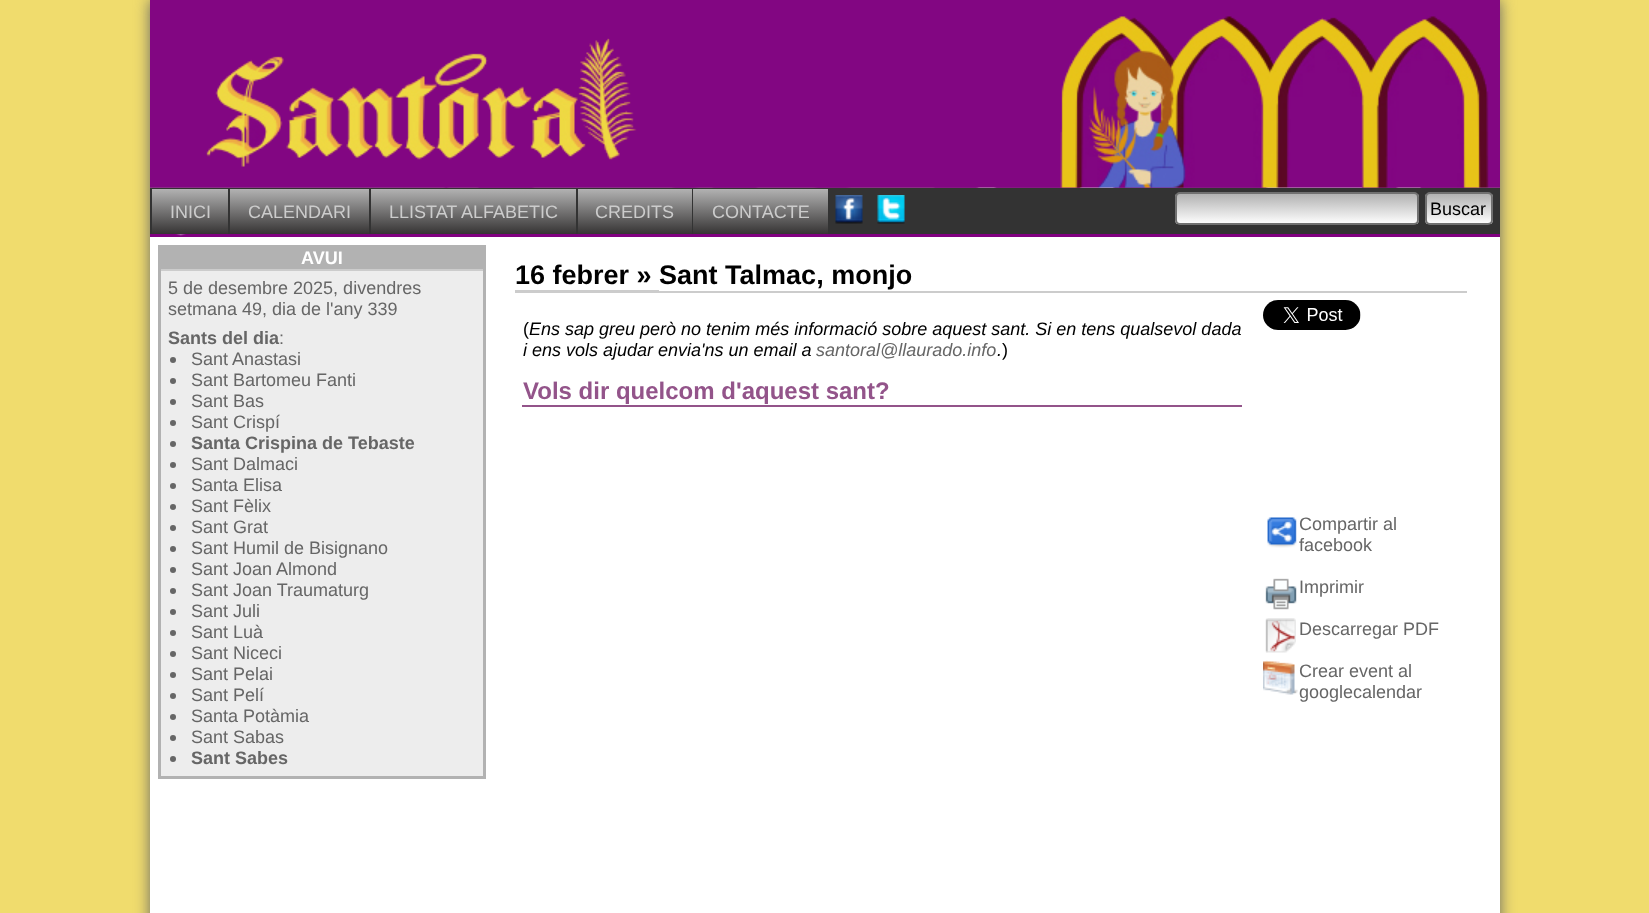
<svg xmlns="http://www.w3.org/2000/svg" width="1649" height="913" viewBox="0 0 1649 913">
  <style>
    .t1 { font: 18px Liberation Sans; fill: #ccc; }
    .t2 { font: 18px Liberation Sans; fill: #000; }
    .t3 { font: bold 18px Liberation Sans; fill: #fff; }
    .t4 { font: 18px Liberation Sans; fill: #666; }
    .t5 { font: bold 18px Liberation Sans; fill: #666; }
    .t6 { font: bold 27px Liberation Sans; fill: #000; }
    .t7 { font: italic 18px Liberation Sans; fill: #000; }
    .t8 { font: italic 18px Liberation Sans; fill: #666; }
    .t9 { font: bold 24px Liberation Sans; fill: #93548a; }
  </style>
  <defs>
    <linearGradient id="g1" gradientUnits="userSpaceOnUse" x1="152" y1="189" x2="152" y2="234"><stop offset="0" stop-color="#b2b2b2"/><stop offset="1" stop-color="#363434"/></linearGradient>
    <linearGradient id="g2" gradientUnits="userSpaceOnUse" x1="230" y1="189" x2="230" y2="234"><stop offset="0" stop-color="#b2b2b2"/><stop offset="1" stop-color="#363434"/></linearGradient>
    <linearGradient id="g3" gradientUnits="userSpaceOnUse" x1="371" y1="189" x2="371" y2="234"><stop offset="0" stop-color="#b2b2b2"/><stop offset="1" stop-color="#363434"/></linearGradient>
    <linearGradient id="g4" gradientUnits="userSpaceOnUse" x1="578" y1="189" x2="578" y2="234"><stop offset="0" stop-color="#b2b2b2"/><stop offset="1" stop-color="#363434"/></linearGradient>
    <linearGradient id="g5" gradientUnits="userSpaceOnUse" x1="693" y1="189" x2="693" y2="234"><stop offset="0" stop-color="#b2b2b2"/><stop offset="1" stop-color="#363434"/></linearGradient>
    <clipPath id="clip1"><rect x="1175" y="192" width="244" height="33" rx="5"/></clipPath>
    <linearGradient id="g6" gradientUnits="userSpaceOnUse" x1="1176" y1="194" x2="1176" y2="224"><stop offset="0" stop-color="#b2b2b2"/><stop offset="1" stop-color="#fff"/></linearGradient>
    <clipPath id="clip2"><rect x="1425" y="192" width="68" height="33" rx="5"/></clipPath>
    <linearGradient id="g7" gradientUnits="userSpaceOnUse" x1="1427" y1="194" x2="1427" y2="224"><stop offset="0" stop-color="#b2b2b2"/><stop offset="1" stop-color="#fff"/></linearGradient>
  </defs>
  <rect width="100%" height="100%" fill="#f0dc6d"/>
  <rect x="150" y="0" width="1350" height="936" fill="#666" filter="blur(7.5px)"/>
  <rect x="150" y="237" width="1350" height="676" fill="#fff"/>
  <rect x="150" y="187" width="1350" height="1" fill="#93548a"/>
  <image x="150" y="187" width="1350" height="50" href="images/2.png"/>
  <image x="150" y="0" width="1350" height="188" href="images/1.png"/>
  <rect x="150" y="188" width="1350" height="46" fill="#333"/>
  <rect x="152" y="189" width="76" height="45" fill="url(#g1)"/>
  <text x="170" y="218" class="t1">INICI</text>
  <rect x="230" y="189" width="139" height="45" fill="url(#g2)"/>
  <text x="248" y="218" class="t1">CALENDARI</text>
  <rect x="371" y="189" width="205" height="45" fill="url(#g3)"/>
  <text x="389" y="218" class="t1">LLISTAT ALFABETIC</text>
  <rect x="578" y="189" width="114" height="45" fill="url(#g4)"/>
  <text x="595" y="218" class="t1">CREDITS</text>
  <rect x="693" y="189" width="135" height="45" fill="url(#g5)"/>
  <text x="712" y="218" class="t1">CONTACTE</text>
  <image x="835" y="195" width="28" height="29" href="images/3.png"/>
  <image x="877" y="195" width="28" height="29" href="images/4.png"/>
  <g clip-path="url(#clip1)">
    <rect x="1175" y="194" width="244" height="30" fill="url(#g6)"/>
  </g>
  <rect x="1176" y="193" width="242" height="31" rx="4" fill="none" stroke="#717171" stroke-width="2"/>
  <g clip-path="url(#clip2)">
    <rect x="1425" y="194" width="68" height="30" fill="url(#g7)"/>
  </g>
  <rect x="1426" y="193" width="66" height="31" rx="4" fill="none" stroke="#717171" stroke-width="2"/>
  <text x="1430" y="215" class="t2">Buscar</text>
  <rect x="161" y="271" width="322" height="505" fill="#ededed"/>
  <rect x="159.5" y="246.5" width="325" height="531" fill="none" stroke="#b2b2b2" stroke-width="3"/>
  <rect x="161" y="248" width="322" height="21" fill="#b2b2b2"/>
  <rect x="161" y="269" width="322" height="2" fill="#ccc"/>
  <text x="301" y="264" class="t3">AVUI</text>
  <text x="168" y="294" class="t4">5 de desembre 2025, divendres</text>
  <text x="168" y="315" class="t4">setmana 49, dia de l'any 339</text>
  <text x="168" y="344" class="t5">Sants del dia</text>
  <text x="279" y="344" class="t4">:</text>
  <circle cx="173" cy="360" r="3" fill="#666"/>
  <text x="191" y="365" class="t4">Sant Anastasi</text>
  <circle cx="173" cy="381" r="3" fill="#666"/>
  <text x="191" y="386" class="t4">Sant Bartomeu Fanti</text>
  <circle cx="173" cy="402" r="3" fill="#666"/>
  <text x="191" y="407" class="t4">Sant Bas</text>
  <circle cx="173" cy="423" r="3" fill="#666"/>
  <text x="191" y="428" class="t4">Sant Crispí</text>
  <circle cx="173" cy="444" r="3" fill="#666"/>
  <text x="191" y="449" class="t5">Santa Crispina de Tebaste</text>
  <circle cx="173" cy="465" r="3" fill="#666"/>
  <text x="191" y="470" class="t4">Sant Dalmaci</text>
  <circle cx="173" cy="486" r="3" fill="#666"/>
  <text x="191" y="491" class="t4">Santa Elisa</text>
  <circle cx="173" cy="507" r="3" fill="#666"/>
  <text x="191" y="512" class="t4">Sant Fèlix</text>
  <circle cx="173" cy="528" r="3" fill="#666"/>
  <text x="191" y="533" class="t4">Sant Grat</text>
  <circle cx="173" cy="549" r="3" fill="#666"/>
  <text x="191" y="554" class="t4">Sant Humil de Bisignano</text>
  <circle cx="173" cy="570" r="3" fill="#666"/>
  <text x="191" y="575" class="t4">Sant Joan Almond</text>
  <circle cx="173" cy="591" r="3" fill="#666"/>
  <text x="191" y="596" class="t4">Sant Joan Traumaturg</text>
  <circle cx="173" cy="612" r="3" fill="#666"/>
  <text x="191" y="617" class="t4">Sant Juli</text>
  <circle cx="173" cy="633" r="3" fill="#666"/>
  <text x="191" y="638" class="t4">Sant Luà</text>
  <circle cx="173" cy="654" r="3" fill="#666"/>
  <text x="191" y="659" class="t4">Sant Niceci</text>
  <circle cx="173" cy="675" r="3" fill="#666"/>
  <text x="191" y="680" class="t4">Sant Pelai</text>
  <circle cx="173" cy="696" r="3" fill="#666"/>
  <text x="191" y="701" class="t4">Sant Pelí</text>
  <circle cx="173" cy="717" r="3" fill="#666"/>
  <text x="191" y="722" class="t4">Santa Potàmia</text>
  <circle cx="173" cy="738" r="3" fill="#666"/>
  <text x="191" y="743" class="t4">Sant Sabas</text>
  <circle cx="173" cy="759" r="3" fill="#666"/>
  <text x="191" y="764" class="t5">Sant Sabes</text>
  <rect x="515" y="291" width="952" height="2" fill="#ccc"/>
  <text x="515" y="284" class="t6">16 febrer » Sant Talmac, monjo</text>
  <rect x="515" y="290" width="144" height="1" fill="#ccc"/>
  <text x="523" y="335" class="t2">(</text>
  <text x="529" y="335" class="t7">Ens sap greu però no tenim més informació sobre aquest sant. Si en tens qualsevol dada</text>
  <text x="523" y="356" class="t7">i ens vols ajudar envia'ns un email a</text>
  <text x="816" y="356" class="t8">santoral@llaurado.info</text>
  <text x="997" y="356" class="t7">.</text>
  <text x="1002" y="356" class="t2">)</text>
  <rect x="522" y="405" width="720" height="2" fill="#93548a"/>
  <text x="523" y="399" class="t9">Vols dir quelcom d'aquest sant?</text>
  <image x="1263" y="300" width="98" height="30" href="images/5.png"/>
  <image x="1267" y="517" width="30" height="31" href="images/6.png"/>
  <text x="1299" y="530" class="t4">Compartir al</text>
  <text x="1299" y="551" class="t4">facebook</text>
  <image x="1265" y="578" width="32" height="32" href="images/7.png"/>
  <text x="1299" y="593" class="t4">Imprimir</text>
  <image x="1265" y="618" width="31" height="35" href="images/8.png"/>
  <text x="1299" y="635" class="t4">Descarregar PDF</text>
  <image x="1263" y="660" width="35" height="35" href="images/9.png"/>
  <text x="1299" y="677" class="t4">Crear event al</text>
  <text x="1299" y="698" class="t4">googlecalendar</text>
</svg>
